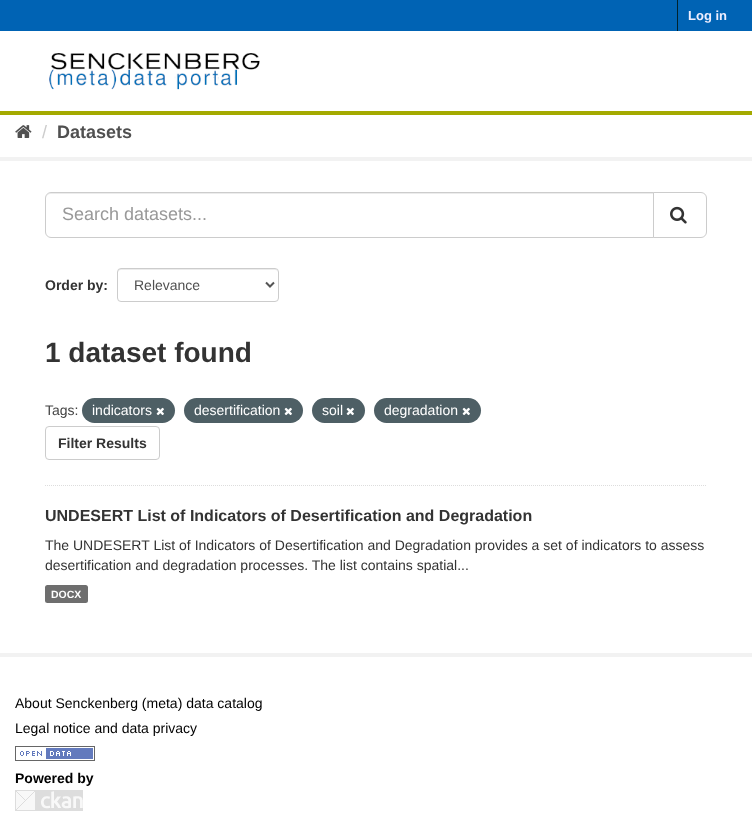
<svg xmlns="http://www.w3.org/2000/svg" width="752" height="831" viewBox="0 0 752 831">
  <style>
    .t1 { font: bold 13px Liberation Sans; fill: #eef; }
    .t2 { font: 18px Liberation Sans; fill: #ccc; }
    .t3 { font: bold 18px Liberation Sans; fill: #505050; }
    .t4 { font: 18px Liberation Sans; fill: #999; }
    .t5 { font: bold 14px Liberation Sans; fill: #333; }
    .t6 { font: 14px Liberation Sans; fill: #505050; }
    .t7 { font: bold 28px Liberation Sans; fill: #333; }
    .t8 { font: 14px Liberation Sans; fill: #444; }
    .t9 { font: 14px Liberation Sans; fill: #fff; }
    .t10 { font: bold 16px Liberation Sans; fill: #333; }
    .t11 { font: 14px Liberation Sans; fill: #333; }
    .t12 { font: bold 10.5px Liberation Sans; fill: #fff; }
    .t13 { font: 14px Liberation Sans; fill: #000; }
    .t14 { font: bold 14px Liberation Sans; fill: #000; }
  </style>
  <rect width="100%" height="100%" fill="#fff"/>
  <rect x="0" y="0" width="752" height="31" fill="#0063b4"/>
  <rect x="677" y="0" width="1" height="31" fill="#00232e"/>
  <text x="688" y="20" class="t1">Log in</text>
  <rect x="0" y="111" width="752" height="4" fill="#a4aa00"/>
  <image x="49" y="53" width="211" height="37" href="images/1.png"/>
  <image x="15" y="125" width="17" height="13" href="images/2.png"/>
  <text x="42" y="138" class="t2">/</text>
  <text x="57" y="138" class="t3">Datasets</text>
  <rect x="-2" y="159" width="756" height="496" fill="none" stroke="#f2f2f2" stroke-width="4"/>
  <path d="M45 485.5H707" fill="none" stroke="#ddd" stroke-dasharray="1 1"/>
  <path d="M51 194H653V193H51C48 193 46 196 46 199C46 196 48 194 51 194Z" fill="#ececec"/>
  <path d="M51 192.5H653.5V237.5H51C48 237.5 45.5 235 45.5 232V198C45.5 195 48 192.5 51 192.5Z" fill="none" stroke="#ccc"/>
  <text x="62" y="220" class="t4">Search datasets...</text>
  <path d="M653.5 192.5H701C704 192.5 706.5 195 706.5 198V232C706.5 235 704 237.5 701 237.5H653.5Z" fill="#fff" stroke="#ccc"/>
  <image x="670" y="206" width="17" height="18" href="images/3.png"/>
  <text x="45" y="290" class="t5">Order by:</text>
  <path d="M121 270H275C277 270 278 271 278 273C278 271 277 269 275 269H120C118 269 118 271 118 273C118 271 119 270 121 270Z" fill="#ececec"/>
  <rect x="117.5" y="268.5" width="161" height="33" rx="3.5" fill="none" stroke="#ccc"/>
  <path d="M266 282.5L270 286.5L274 282.5" fill="none" stroke="#555" stroke-width="2"/>
  <text x="134" y="290" class="t6">Relevance</text>
  <text x="45" y="362" class="t7">1 dataset found</text>
  <text x="45" y="415" class="t8">Tags:</text>
  <rect x="82" y="398" width="93" height="25" rx="12.5" fill="#4e5f65"/>
  <text x="92" y="415" class="t9">indicators</text>
  <image x="156" y="407" width="8" height="9" href="images/4.png"/>
  <rect x="184" y="398" width="119" height="25" rx="12.5" fill="#4e5f65"/>
  <text x="194" y="415" class="t9">desertification</text>
  <image x="284" y="407" width="8" height="9" href="images/4.png"/>
  <rect x="312" y="398" width="53" height="25" rx="12.5" fill="#4e5f65"/>
  <text x="322" y="415" class="t9">soil</text>
  <image x="346" y="407" width="8" height="9" href="images/4.png"/>
  <rect x="374" y="398" width="107" height="25" rx="12.5" fill="#4e5f65"/>
  <text x="384" y="415" class="t9">degradation</text>
  <image x="462" y="407" width="8" height="9" href="images/4.png"/>
  <rect x="45.5" y="426.5" width="114" height="33" rx="3.5" fill="none" stroke="#ccc"/>
  <text x="58" y="448" class="t5">Filter Results</text>
  <text x="45" y="521" class="t10">UNDESERT List of Indicators of Desertification and Degradation</text>
  <text x="45" y="550" class="t11">The UNDESERT List of Indicators of Desertification and Degradation provides a set of indicators to assess</text>
  <text x="45" y="570" class="t11">desertification and degradation processes. The list contains spatial...</text>
  <rect x="45" y="585" width="43" height="18" rx="2.5" fill="#6e6e6e"/>
  <text x="51" y="598" class="t12">DOCX</text>
  <text x="15" y="708" class="t13">About Senckenberg (meta) data catalog</text>
  <text x="15" y="733" class="t13">Legal notice and data privacy</text>
  <image x="15" y="746" width="80" height="15" href="images/5.png"/>
  <text x="15" y="783" class="t14">Powered by</text>
  <rect x="15" y="790" width="68" height="21" fill="#ddd"/>
  <image x="16" y="791" width="67" height="19" href="images/6.png"/>
</svg>
